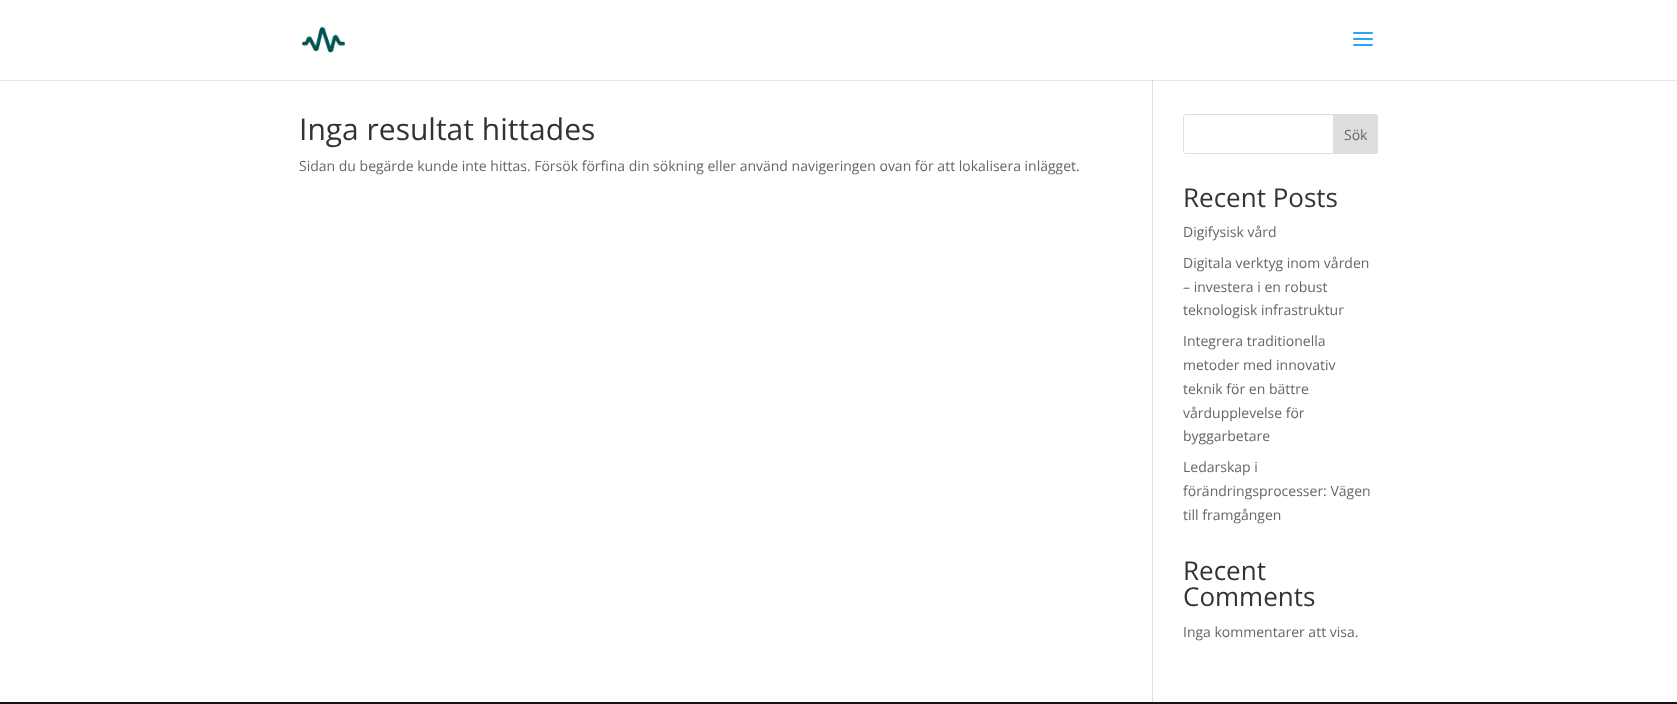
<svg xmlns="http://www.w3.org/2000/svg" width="1677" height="704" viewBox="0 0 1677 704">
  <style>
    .t1 { font: 30px Open Sans; fill: #333; }
    .t2 { font: 14px Open Sans; fill: #666; }
    .t3 { font: 26px Open Sans; fill: #333; }
  </style>
  <rect width="100%" height="100%" fill="#fff"/>
  <rect x="0" y="80" width="1677" height="1" fill="#e6e6e6"/>
  <image x="302" y="27" width="43" height="26" href="images/1.png"/>
  <image x="1353" y="32" width="20" height="14" href="images/2.png"/>
  <rect x="1152" y="81" width="1" height="621" fill="#e2e2e2"/>
  <rect x="1152" y="80" width="1" height="1" fill="#cbcbcb"/>
  <text x="299" y="140" class="t1">Inga resultat hittades</text>
  <text x="299" y="171" class="t2">Sidan du begärde kunde inte hittas. Försök förfina din sökning eller använd navigeringen ovan för att lokalisera inlägget.</text>
  <rect x="1183.5" y="114.5" width="194" height="39" rx="2.5" fill="none" stroke="#ddd"/>
  <path d="M1333.5 114.5H1375C1376.5 114.5 1377.5 115.5 1377.5 117V151C1377.5 152.5 1376.5 153.5 1375 153.5H1333.5Z" fill="#ddd" stroke="#ddd"/>
  <text x="1344" y="140" class="t2">Sök</text>
  <text x="1183" y="207" class="t3">Recent Posts</text>
  <text x="1183" y="237" class="t2">Digifysisk vård</text>
  <text x="1183" y="268" class="t2">Digitala verktyg inom vården</text>
  <text x="1183" y="292" class="t2">– investera i en robust</text>
  <text x="1183" y="315" class="t2">teknologisk infrastruktur</text>
  <text x="1183" y="346" class="t2">Integrera traditionella</text>
  <text x="1183" y="370" class="t2">metoder med innovativ</text>
  <text x="1183" y="394" class="t2">teknik för en bättre</text>
  <text x="1183" y="418" class="t2">vårdupplevelse för</text>
  <text x="1183" y="441" class="t2">byggarbetare</text>
  <text x="1183" y="472" class="t2">Ledarskap i</text>
  <text x="1183" y="496" class="t2">förändringsprocesser: Vägen</text>
  <text x="1183" y="520" class="t2">till framgången</text>
  <text x="1183" y="580" class="t3">Recent</text>
  <text x="1183" y="606" class="t3">Comments</text>
  <text x="1183" y="637" class="t2">Inga kommentarer att visa.</text>
  <rect x="0" y="702" width="1677" height="2" fill="#171717"/>
</svg>
